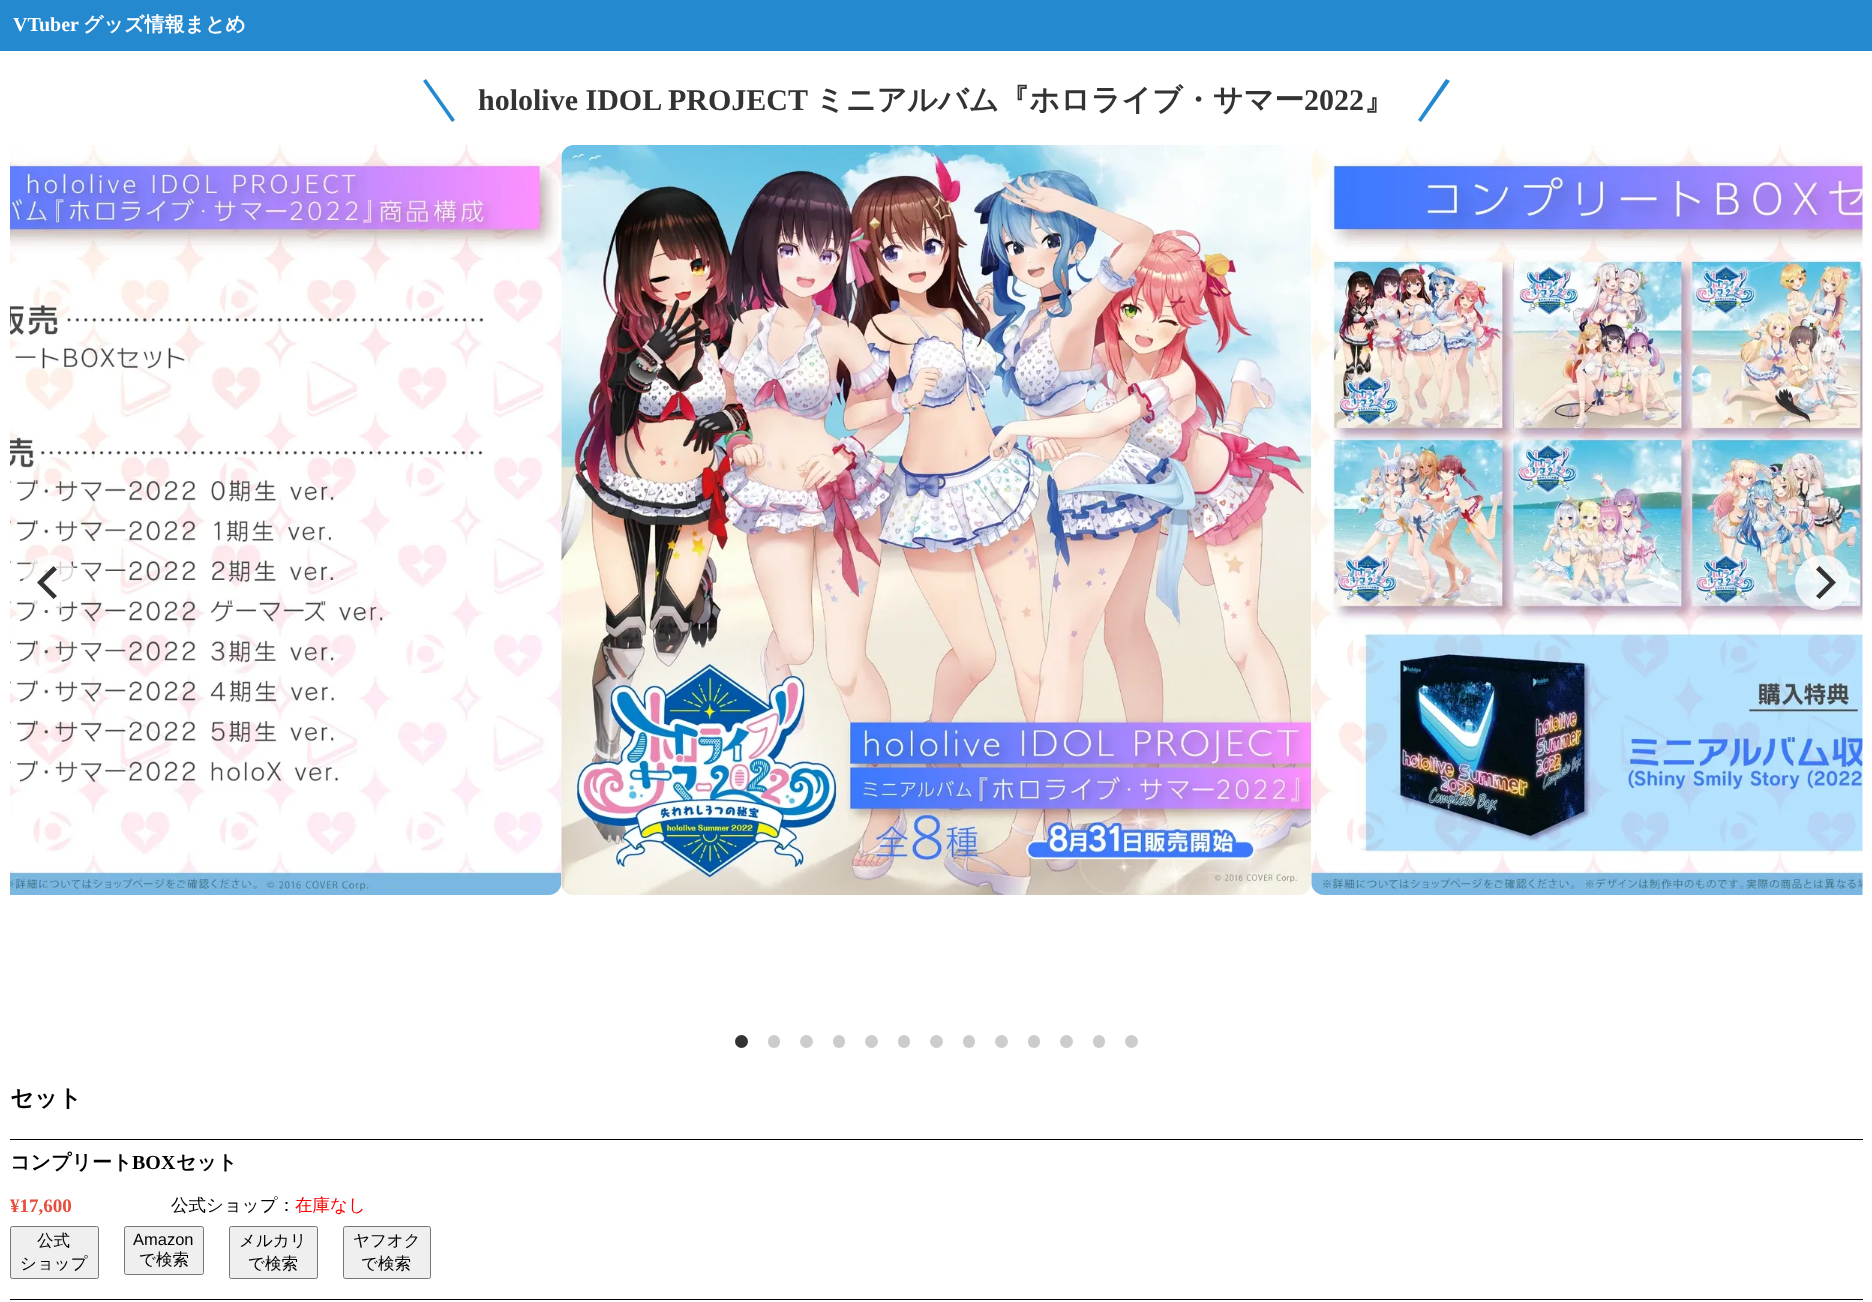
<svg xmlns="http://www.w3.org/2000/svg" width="1872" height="1302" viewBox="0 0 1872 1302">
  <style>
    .t1 { font: bold 20px Liberation Serif; fill: #fff; }
    .t2 { font: bold 20px WenQuanYi Zen Hei; fill: #fff; }
    .t3 { font: bold 30px Liberation Serif; fill: #333; }
    .t4 { font: bold 30px WenQuanYi Zen Hei; fill: #333; }
    .t5 { font: bold 23.5px WenQuanYi Zen Hei; fill: #000; }
    .t6 { font: bold 20px WenQuanYi Zen Hei; fill: #000; }
    .t7 { font: bold 20px Liberation Serif; fill: #000; }
    .t8 { font: bold 19px Liberation Serif; fill: #e74c3c; }
    .t9 { font: 500 17.5px WenQuanYi Zen Hei; fill: #000; }
    .t10 { font: 500 17.5px WenQuanYi Zen Hei; fill: #f00; }
    .t11 { font: 500 16.5px WenQuanYi Zen Hei; fill: #000; }
    .t12 { font: 16.5px Liberation Sans; fill: #000; }
  </style>
  <rect width="100%" height="100%" fill="#fff"/>
  <rect x="0" y="0" width="1872" height="51" fill="#2589d0"/>
  <text x="13" y="31" class="t1">VTuber</text>
  <text x="83" y="31" class="t2">グッズ情報まとめ</text>
  <path d="M423 81L426 79L455 120L452 122Z" fill="#2589d0"/>
  <text x="478" y="110" class="t3">hololive IDOL PROJECT</text>
  <text x="815" y="110" class="t4">ミニアルバム『ホロライブ・サマー</text>
  <text x="1304" y="110" class="t3">2022</text>
  <text x="1364" y="110" class="t4">』</text>
  <path d="M1446 79L1450 81L1421 122L1418 120Z" fill="#2589d0"/>
  <image x="561" y="145" width="751" height="750" href="images/2.png"/>
  <image x="10" y="145" width="552" height="750" href="images/1.png"/>
  <image x="1311" y="145" width="552" height="750" href="images/3.png"/>
  <circle cx="50.5" cy="582.5" r="27.5" fill="#ffffffbf"/>
  <path d="M37 582.5L53.5 599L57 596L43.5 582.5L57 569.5L53.5 566Z" fill="#333"/>
  <circle cx="1822.5" cy="582.5" r="27.5" fill="#ffffffbf"/>
  <path d="M1836 582.5L1819.5 566L1816 569.5L1829.5 582.5L1816 596L1819.5 599Z" fill="#333"/>
  <circle cx="741.5" cy="1041.5" r="6.5" fill="#333"/>
  <rect x="768" y="1035" width="12" height="13" rx="6" fill="#ccc"/>
  <circle cx="806.5" cy="1041.5" r="6.5" fill="#ccc"/>
  <rect x="833" y="1035" width="12" height="13" rx="6" fill="#ccc"/>
  <circle cx="871.5" cy="1041.5" r="6.5" fill="#ccc"/>
  <rect x="898" y="1035" width="12" height="13" rx="6" fill="#ccc"/>
  <circle cx="936.5" cy="1041.5" r="6.5" fill="#ccc"/>
  <rect x="963" y="1035" width="12" height="13" rx="6" fill="#ccc"/>
  <circle cx="1001.5" cy="1041.5" r="6.5" fill="#ccc"/>
  <rect x="1028" y="1035" width="12" height="13" rx="6" fill="#ccc"/>
  <circle cx="1066.5" cy="1041.5" r="6.5" fill="#ccc"/>
  <rect x="1093" y="1035" width="12" height="13" rx="6" fill="#ccc"/>
  <circle cx="1131.5" cy="1041.5" r="6.5" fill="#ccc"/>
  <text x="10" y="1106" class="t5">セット</text>
  <rect x="10" y="1139" width="1853" height="1" fill="#000"/>
  <rect x="10" y="1299" width="1853" height="1" fill="#000"/>
  <text x="10" y="1169" class="t6">コンプリート</text>
  <text x="132" y="1169" class="t7">BOX</text>
  <text x="176" y="1169" class="t6">セット</text>
  <text x="10" y="1212" class="t8">¥17,600</text>
  <text x="171" y="1211" class="t9">公式ショップ：</text>
  <text x="295" y="1211" class="t10">在庫なし</text>
  <rect x="10.5" y="1226.5" width="88" height="52" rx="2" fill="#efefef" stroke="#767676"/>
  <text x="37" y="1246" class="t11">公式</text>
  <text x="20" y="1269" class="t11">ショップ</text>
  <rect x="124.5" y="1226.5" width="79" height="48" rx="2" fill="#efefef" stroke="#767676"/>
  <text x="133" y="1245" class="t12">Amazon</text>
  <text x="139" y="1265" class="t11">で検索</text>
  <rect x="229.5" y="1226.5" width="88" height="52" rx="2" fill="#efefef" stroke="#767676"/>
  <text x="239" y="1246" class="t11">メルカリ</text>
  <text x="248" y="1269" class="t11">で検索</text>
  <rect x="343.5" y="1226.5" width="87" height="52" rx="2" fill="#efefef" stroke="#767676"/>
  <text x="353" y="1246" class="t11">ヤフオク</text>
  <text x="361" y="1269" class="t11">で検索</text>
</svg>
